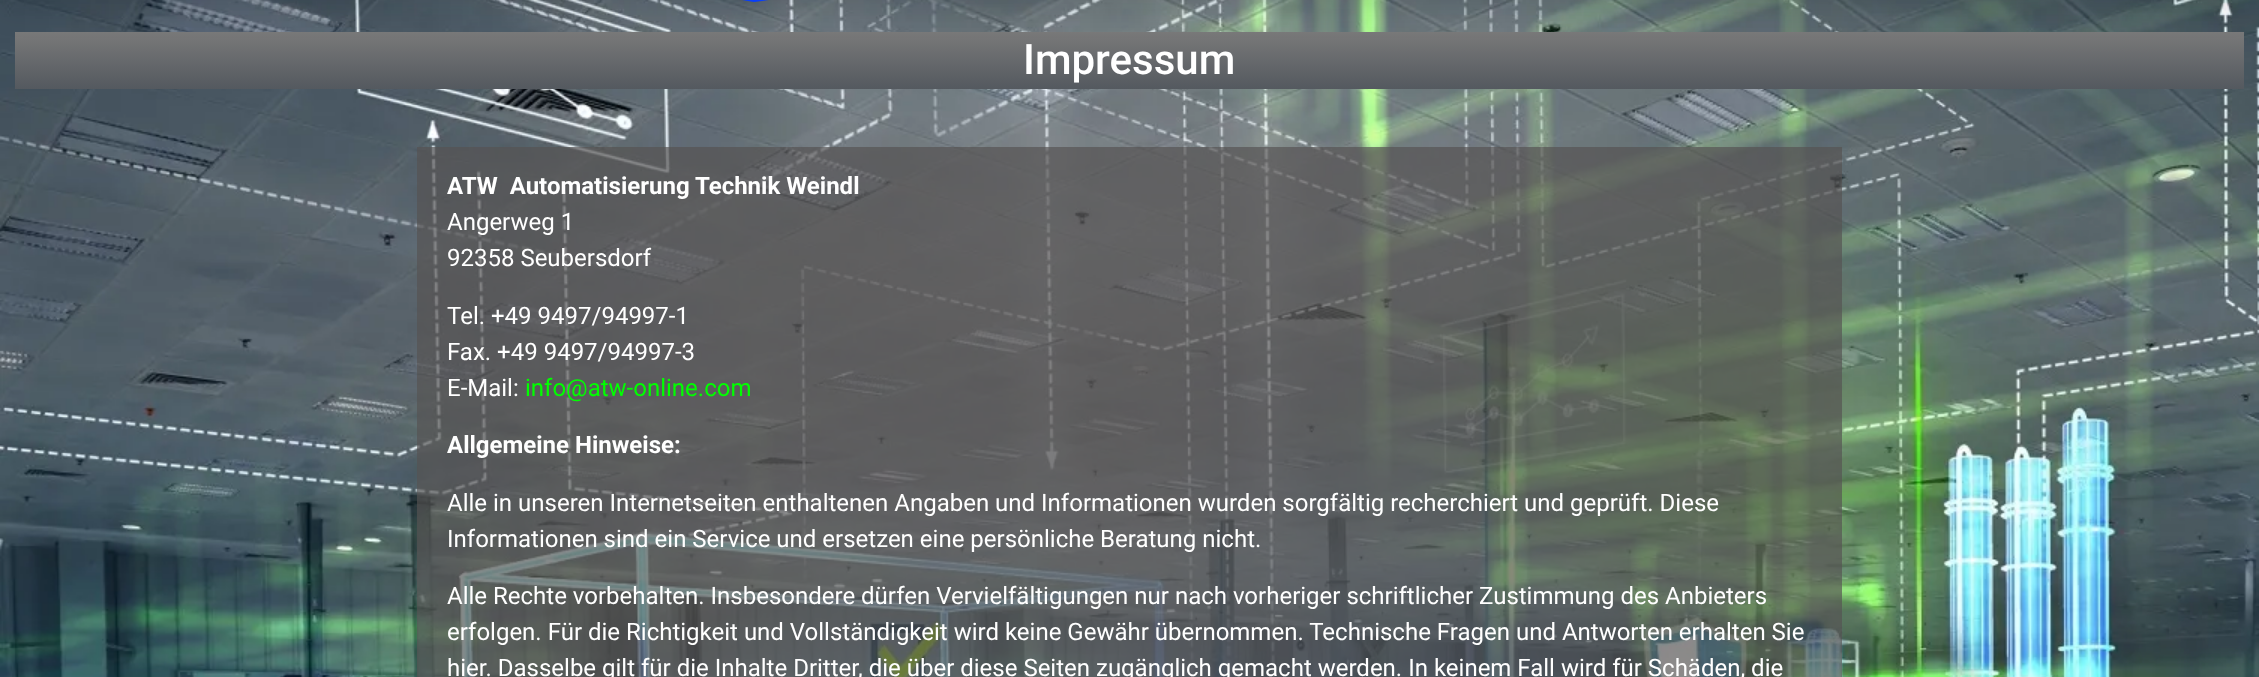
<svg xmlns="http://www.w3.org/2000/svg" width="2259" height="677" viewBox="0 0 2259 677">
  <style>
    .t1 { font: 500 42px Roboto; fill: #fff; }
    .t2 { font: bold 24px Roboto; fill: #fff; }
    .t3 { font: 24px Roboto; fill: #fff; }
    .t4 { font: 24px Roboto; fill: #0f0; }
  </style>
  <defs>
    <linearGradient id="g1" gradientUnits="userSpaceOnUse" x1="1130" y1="31" x2="1130" y2="89"><stop offset="0" stop-color="#7a7a7a"/><stop offset="1" stop-color="#54595f"/></linearGradient>
  </defs>
  <rect width="100%" height="100%" fill="#fff"/>
  <image x="0" y="0" width="2259" height="677" href="images/1.png"/>
  <rect x="15" y="32" width="2229" height="57" fill="url(#g1)"/>
  <rect x="0" y="-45" width="2259" height="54" fill="#0000001a" filter="blur(15px)"/>
  <path d="M1722-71L1453-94L754 2L-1-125V-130H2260V-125" fill="#083efb"/>
  <text x="1023" y="74" class="t1">Impressum</text>
  <rect x="417" y="147" width="1425" height="530" fill="#555252ad"/>
  <text x="447" y="194" class="t2" xml:space="preserve">ATW  Automatisierung Technik Weindl</text>
  <text x="447" y="230" class="t3">Angerweg 1</text>
  <text x="447" y="266" class="t3">92358 Seubersdorf</text>
  <text x="447" y="324" class="t3">Tel. +49 9497/94997-1</text>
  <text x="447" y="360" class="t3">Fax. +49 9497/94997-3</text>
  <text x="447" y="396" class="t3">E-Mail:</text>
  <text x="525" y="396" class="t4">info@atw-online.com</text>
  <text x="447" y="453" class="t2">Allgemeine Hinweise:</text>
  <text x="447" y="511" class="t3">Alle in unseren Internetseiten enthaltenen Angaben und Informationen wurden sorgfältig recherchiert und geprüft. Diese</text>
  <text x="447" y="547" class="t3">Informationen sind ein Service und ersetzen eine persönliche Beratung nicht.</text>
  <text x="447" y="604" class="t3">Alle Rechte vorbehalten. Insbesondere dürfen Vervielfältigungen nur nach vorheriger schriftlicher Zustimmung des Anbieters</text>
  <text x="447" y="640" class="t3">erfolgen. Für die Richtigkeit und Vollständigkeit wird keine Gewähr übernommen. Technische Fragen und Antworten erhalten Sie</text>
  <text x="447" y="676" class="t3">hier. Dasselbe gilt für die Inhalte Dritter, die über diese Seiten zugänglich gemacht werden. In keinem Fall wird für Schäden, die</text>
</svg>
